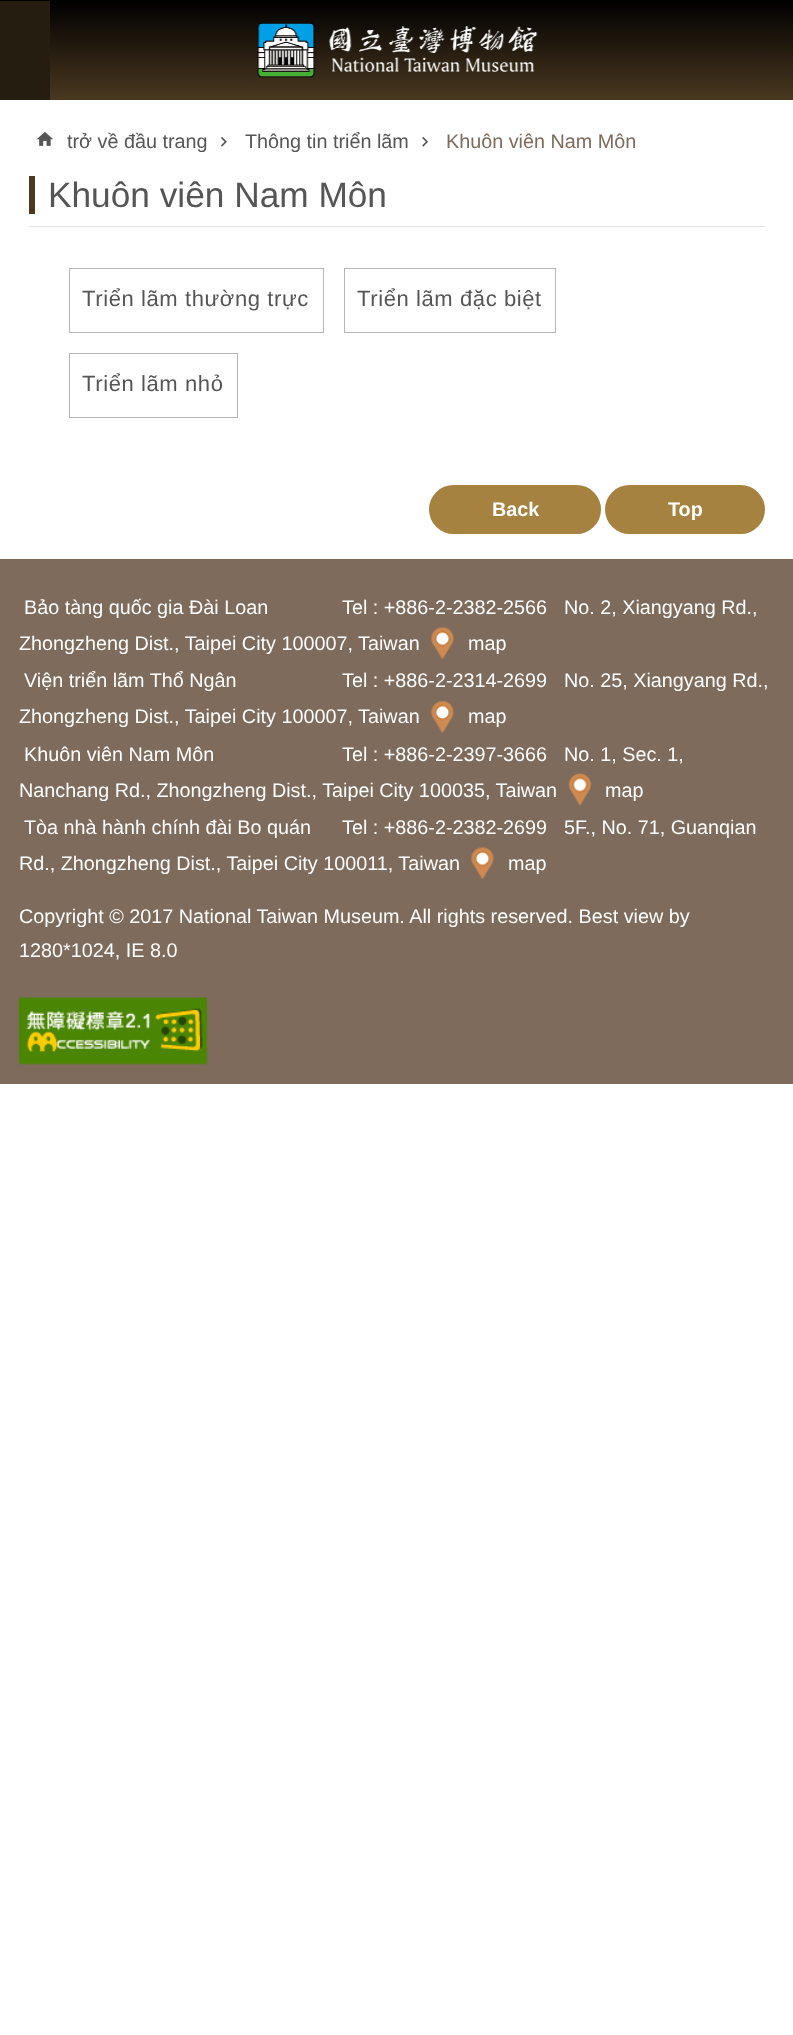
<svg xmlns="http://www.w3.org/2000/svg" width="793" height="2035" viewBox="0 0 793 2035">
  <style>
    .t1 { font: 19.8px Liberation Sans; fill: #555; }
    .t2 { font: 19.8px Liberation Sans; fill: #7e6b5b; }
    .t3 { font: 35.25px Liberation Sans; fill: #555; }
    .t4 { font: 22px Liberation Sans; letter-spacing: 0.6px; fill: #555; }
    .t5 { font: bold 19.8px Liberation Sans; fill: #fff; }
    .t6 { font: 19.8px Liberation Sans; fill: #fff; }
  </style>
  <defs>
    <linearGradient id="g1" gradientUnits="userSpaceOnUse" x1="397" y1="0" x2="397" y2="100"><stop offset="0" stop-color="#000"/><stop offset="1" stop-color="#4a3820"/></linearGradient>
  </defs>
  <rect width="100%" height="100%" fill="#fff"/>
  <rect x="0" y="0" width="793" height="100" fill="url(#g1)"/>
  <image x="257" y="23" width="281" height="55" href="images/1.png"/>
  <rect x="0" y="1" width="50" height="99" fill="#261d11"/>
  <image x="36" y="131" width="17" height="15" href="images/2.png"/>
  <text x="67" y="148" class="t1">trở về đầu trang</text>
  <image x="220" y="137" width="7" height="10" href="images/3.png"/>
  <text x="245" y="148" class="t1">Thông tin triển lãm</text>
  <image x="422" y="136" width="7" height="11" href="images/4.png"/>
  <text x="446" y="148" class="t2">Khuôn viên Nam Môn</text>
  <rect x="29" y="226" width="736" height="1" fill="#e4e4e4"/>
  <rect x="29" y="176" width="6" height="38" fill="#4a3820"/>
  <text x="48" y="207" class="t3">Khuôn viên Nam Môn</text>
  <rect x="69.5" y="268.5" width="254" height="64" fill="none" stroke="#b6b6b6"/>
  <text x="82" y="306" class="t4">Triển lãm thường trực</text>
  <rect x="344.5" y="268.5" width="211" height="64" fill="none" stroke="#b6b6b6"/>
  <text x="357" y="306" class="t4">Triển lãm đặc biệt</text>
  <rect x="69.5" y="353.5" width="168" height="64" fill="none" stroke="#b6b6b6"/>
  <text x="82" y="391" class="t4">Triển lãm nhỏ</text>
  <rect x="429" y="485" width="172" height="49" rx="24.5" fill="#a68240"/>
  <text x="492" y="516" class="t5">Back</text>
  <rect x="605" y="485" width="160" height="49" rx="24.5" fill="#a68240"/>
  <text x="668" y="516" class="t5">Top</text>
  <rect x="0" y="559" width="793" height="525" fill="#7e6b5b"/>
  <text x="24" y="614" class="t6">Bảo tàng quốc gia Đài Loan</text>
  <text x="564" y="614" class="t6">No. 2, Xiangyang Rd.,</text>
  <text x="19" y="650" class="t6">Zhongzheng Dist., Taipei City 100007, Taiwan</text>
  <image x="431" y="627" width="23" height="32" href="images/5.png"/>
  <text x="468" y="650" class="t6">map</text>
  <text x="342" y="614" class="t6">Tel : +886-2-2382-2566</text>
  <text x="24" y="687" class="t6">Viện triển lãm Thổ Ngân</text>
  <text x="564" y="687" class="t6">No. 25, Xiangyang Rd.,</text>
  <text x="19" y="723" class="t6">Zhongzheng Dist., Taipei City 100007, Taiwan</text>
  <image x="431" y="701" width="23" height="32" href="images/6.png"/>
  <text x="468" y="723" class="t6">map</text>
  <text x="342" y="687" class="t6">Tel : +886-2-2314-2699</text>
  <text x="24" y="761" class="t6">Khuôn viên Nam Môn</text>
  <text x="342" y="761" class="t6">Tel : +886-2-2397-3666</text>
  <text x="564" y="761" class="t6">No. 1, Sec. 1,</text>
  <text x="19" y="797" class="t6">Nanchang Rd., Zhongzheng Dist., Taipei City 100035, Taiwan</text>
  <image x="568" y="773" width="24" height="32" href="images/7.png"/>
  <text x="605" y="797" class="t6">map</text>
  <text x="564" y="834" class="t6">5F., No. 71, Guanqian</text>
  <text x="19" y="870" class="t6">Rd., Zhongzheng Dist., Taipei City 100011, Taiwan</text>
  <image x="471" y="847" width="23" height="32" href="images/5.png"/>
  <text x="508" y="870" class="t6">map</text>
  <text x="24" y="834" class="t6">Tòa nhà hành chính đài Bo quán</text>
  <text x="342" y="834" class="t6">Tel : +886-2-2382-2699</text>
  <text x="19" y="923" class="t6">Copyright © 2017 National Taiwan Museum. All rights reserved. Best view by</text>
  <text x="19" y="957" class="t6">1280*1024, IE 8.0</text>
  <image x="18" y="997" width="190" height="68" href="images/8.png"/>
</svg>
